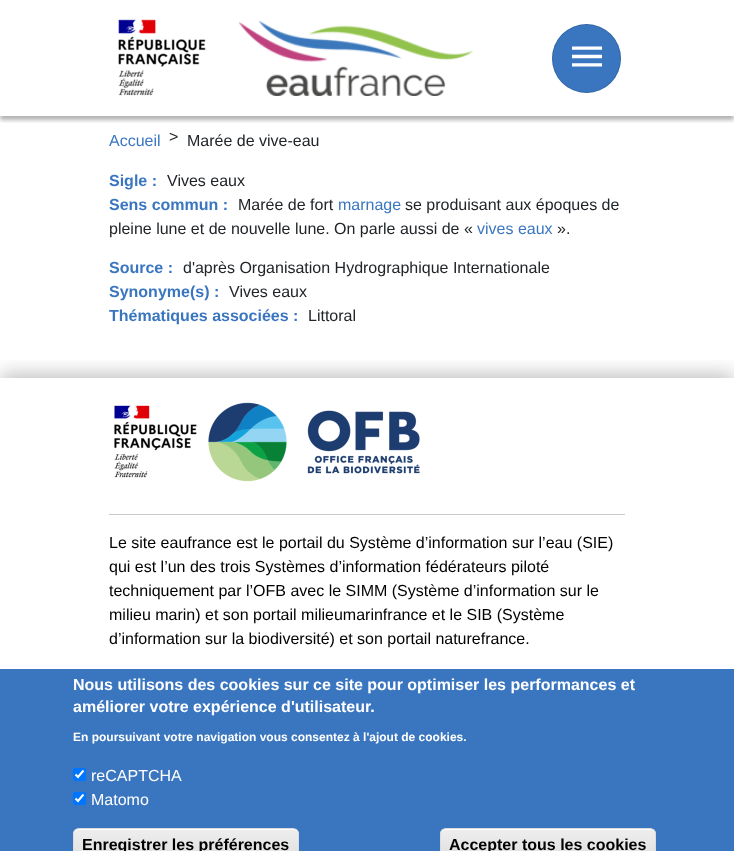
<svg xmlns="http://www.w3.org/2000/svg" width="734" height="851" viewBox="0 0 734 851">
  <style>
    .t1 { font: 16px Liberation Sans; fill: #3a76c0; }
    .t2 { font: 16px Liberation Sans; fill: #212529; }
    .t3 { font: bold 16px Liberation Sans; fill: #3a76c0; }
    .t4 { font: 16px Liberation Sans; fill: #000; }
    .t5 { font: bold 16px Liberation Sans; fill: #fff; }
    .t6 { font: bold 12px Liberation Sans; fill: #fff; }
    .t7 { font: 16px Liberation Sans; fill: #fff; }
    .t8 { font: bold 16px Liberation Sans; fill: #000; }
  </style>
  <defs>
    <clipPath id="clip1"><rect x="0" y="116" width="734" height="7"/></clipPath>
    <clipPath id="clip2"><rect x="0" y="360" width="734" height="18"/></clipPath>
    <clipPath id="clip3"><rect x="73" y="828" width="226" height="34" rx="6"/></clipPath>
    <linearGradient id="g1" gradientUnits="userSpaceOnUse" x1="186" y1="829" x2="186" y2="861"><stop offset="0.05" stop-color="#ededed"/><stop offset="1" stop-color="#dfdfdf"/></linearGradient>
    <clipPath id="clip4"><rect x="440" y="828" width="216" height="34" rx="6"/></clipPath>
    <linearGradient id="g2" gradientUnits="userSpaceOnUse" x1="548" y1="829" x2="548" y2="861"><stop offset="0.05" stop-color="#ededed"/><stop offset="1" stop-color="#dfdfdf"/></linearGradient>
  </defs>
  <rect width="100%" height="100%" fill="#fff"/>
  <g clip-path="url(#clip1)">
    <rect x="0" y="4" width="734" height="116" fill="#0000004d" filter="blur(2px)"/>
  </g>
  <image x="118" y="19" width="88" height="77" href="images/1.png"/>
  <image x="239" y="21" width="234" height="75" href="images/2.png"/>
  <circle cx="586.5" cy="58.5" r="34.5" fill="#3a76c0"/>
  <circle cx="586.5" cy="58.5" r="34" fill="none" stroke="#00000026"/>
  <image x="572" y="46" width="30" height="21" href="images/3.png"/>
  <text x="109" y="146" class="t1">Accueil</text>
  <text x="169" y="142" class="t2">&gt;</text>
  <text x="187" y="146" class="t2">Marée de vive-eau</text>
  <text x="109" y="186" class="t3">Sigle :</text>
  <text x="167" y="186" class="t2">Vives eaux</text>
  <text x="109" y="210" class="t3">Sens commun :</text>
  <text x="238" y="210" class="t2">Marée de fort</text>
  <text x="338" y="210" class="t1">marnage</text>
  <text x="405" y="210" class="t2">se produisant aux époques de</text>
  <text x="109" y="234" class="t2">pleine lune et de nouvelle lune. On parle aussi de «</text>
  <text x="477" y="234" class="t1">vives eaux</text>
  <text x="557" y="234" class="t2">».</text>
  <text x="109" y="273" class="t3">Source :</text>
  <text x="183" y="273" class="t2">d'après Organisation Hydrographique Internationale</text>
  <text x="109" y="297" class="t3">Synonyme(s) :</text>
  <text x="229" y="297" class="t2">Vives eaux</text>
  <text x="109" y="321" class="t3">Thématiques associées :</text>
  <text x="308" y="321" class="t2">Littoral</text>
  <g clip-path="url(#clip2)">
    <rect x="0" y="374" width="734" height="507" fill="#00000040" filter="blur(10px)"/>
  </g>
  <image x="114" y="405" width="83" height="73" href="images/4.png"/>
  <image x="208" y="402" width="212" height="80" href="images/5.png"/>
  <rect x="109" y="514" width="516" height="1" fill="#c8c9ca"/>
  <text x="109" y="548" class="t4">Le site eaufrance est le portail du Système d’information sur l’eau (SIE)</text>
  <text x="109" y="572" class="t4">qui est l’un des trois Systèmes d’information fédérateurs piloté</text>
  <text x="109" y="596" class="t4">techniquement par l’OFB avec le SIMM (Système d’information sur le</text>
  <text x="109" y="620" class="t4">milieu marin) et son portail milieumarinfrance et le SIB (Système</text>
  <text x="109" y="644" class="t4">d’information sur la biodiversité) et son portail naturefrance.</text>
  <rect x="0" y="669" width="734" height="182" fill="#3a76c0"/>
  <text x="73" y="690" class="t5">Nous utilisons des cookies sur ce site pour optimiser les performances et</text>
  <text x="73" y="712" class="t5">améliorer votre expérience d'utilisateur.</text>
  <text x="73" y="741" class="t6">En poursuivant votre navigation vous consentez à l'ajout de cookies.</text>
  <rect x="73" y="768" width="13" height="13" rx="2" fill="#0075ff"/>
  <path d="M75.5 774.5L78 777L83.5 770.5" fill="none" stroke="#fff" stroke-width="2.1"/>
  <text x="91" y="781" class="t7">reCAPTCHA</text>
  <rect x="73" y="792" width="13" height="13" rx="2" fill="#0075ff"/>
  <path d="M75.5 798.5L78 801L83.5 794.5" fill="none" stroke="#fff" stroke-width="2.1"/>
  <text x="91" y="805" class="t7">Matomo</text>
  <g clip-path="url(#clip3)">
    <rect x="73" y="829" width="226" height="22" fill="url(#g1)"/>
  </g>
  <path d="M79 830H293C296 830 298 832 298 835V834C298 831 296 829 293 829H79C76 829 74 831 74 834V835C74 832 76 830 79 830Z" fill="#fff"/>
  <rect x="73.5" y="828.5" width="225" height="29" rx="5.5" fill="none" stroke="#dcdcdc"/>
  <text x="82" y="850" class="t8">Enregistrer les préférences</text>
  <g clip-path="url(#clip4)">
    <rect x="440" y="829" width="216" height="22" fill="url(#g2)"/>
  </g>
  <path d="M446 830H650C653 830 655 832 655 835C655 832 653 829 650 829H445C442 830 441 832 441 835C441 832 443 830 446 830Z" fill="#fff"/>
  <rect x="440.5" y="828.5" width="215" height="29" rx="5.5" fill="none" stroke="#dcdcdc"/>
  <text x="449" y="850" class="t8">Accepter tous les cookies</text>
</svg>
